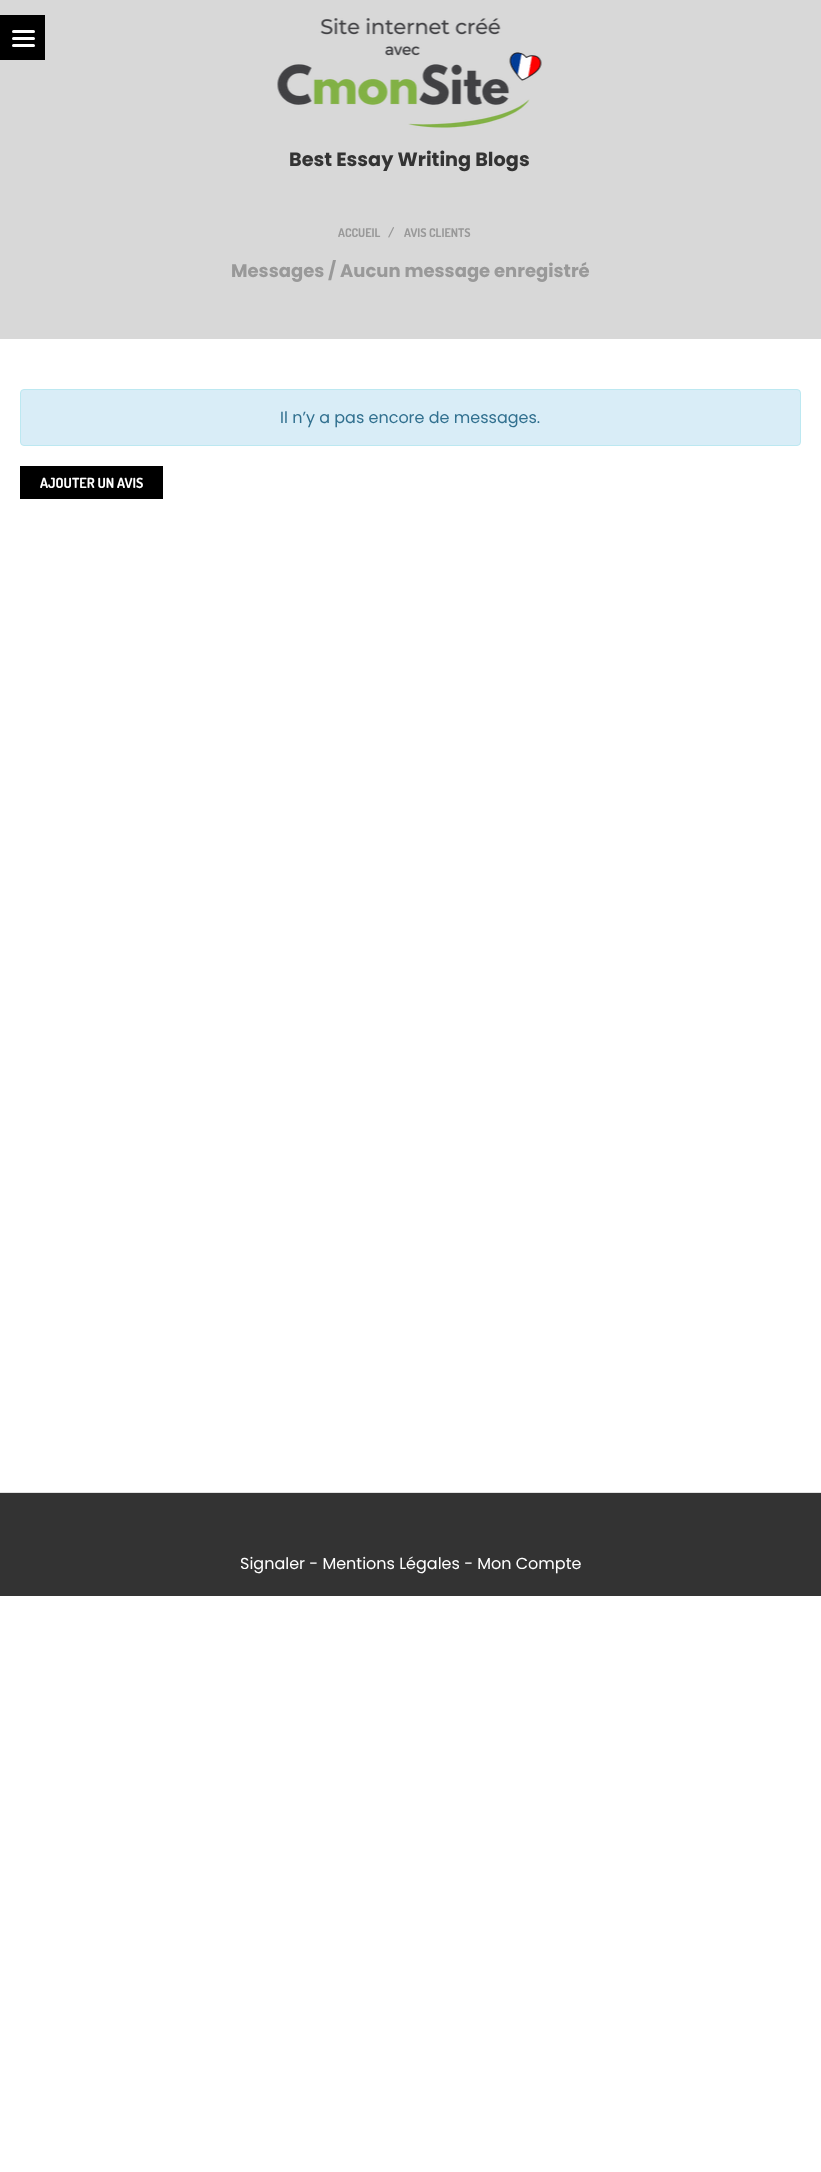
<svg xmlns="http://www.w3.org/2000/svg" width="821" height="2172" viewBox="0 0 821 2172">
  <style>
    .t1 { font: bold 19.25px Poppins; fill: #333; }
    .t2 { font: bold 12px Dosis; fill: #999; }
    .t3 { font: bold 13px Dosis; fill: #999; }
    .t4 { font: bold 18px Poppins; fill: #999; }
    .t5 { font: 16px Poppins; fill: #31708f; }
    .t6 { font: bold 14px Dosis; fill: #fff; }
    .t7 { font: 16px Poppins; fill: #fff; }
  </style>
  <rect width="100%" height="100%" fill="#fff"/>
  <rect x="0" y="0" width="821" height="339" fill="#d8d8d8"/>
  <rect x="0" y="15" width="45" height="45" fill="#000"/>
  <rect x="12" y="30" width="23" height="3" rx="1.5" fill="#fff"/>
  <rect x="12" y="37" width="23" height="3" rx="1.5" fill="#fff"/>
  <rect x="12" y="44" width="23" height="3" rx="1.5" fill="#fff"/>
  <image x="277" y="18" width="265" height="110" href="images/1.png"/>
  <text x="289" y="166" class="t1">Best Essay Writing Blogs</text>
  <text x="338" y="237" class="t2">ACCUEIL</text>
  <text x="388" y="237" class="t3">/</text>
  <text x="404" y="237" class="t2">AVIS CLIENTS</text>
  <text x="231" y="277" class="t4">Messages / Aucun message enregistré</text>
  <rect x="20.5" y="389.5" width="780" height="56" rx="3.5" fill="#d9edf7" stroke="#bce8f1"/>
  <text x="280" y="423" class="t5">Il n’y a pas encore de messages.</text>
  <rect x="20" y="466" width="143" height="33" fill="#000"/>
  <text x="40" y="488" class="t6">AJOUTER UN AVIS</text>
  <rect x="0" y="1493" width="821" height="103" fill="#333"/>
  <rect x="0" y="1492" width="821" height="1" fill="#e1e1e1"/>
  <text x="240" y="1569" class="t7">Signaler - Mentions Légales - Mon Compte</text>
</svg>
